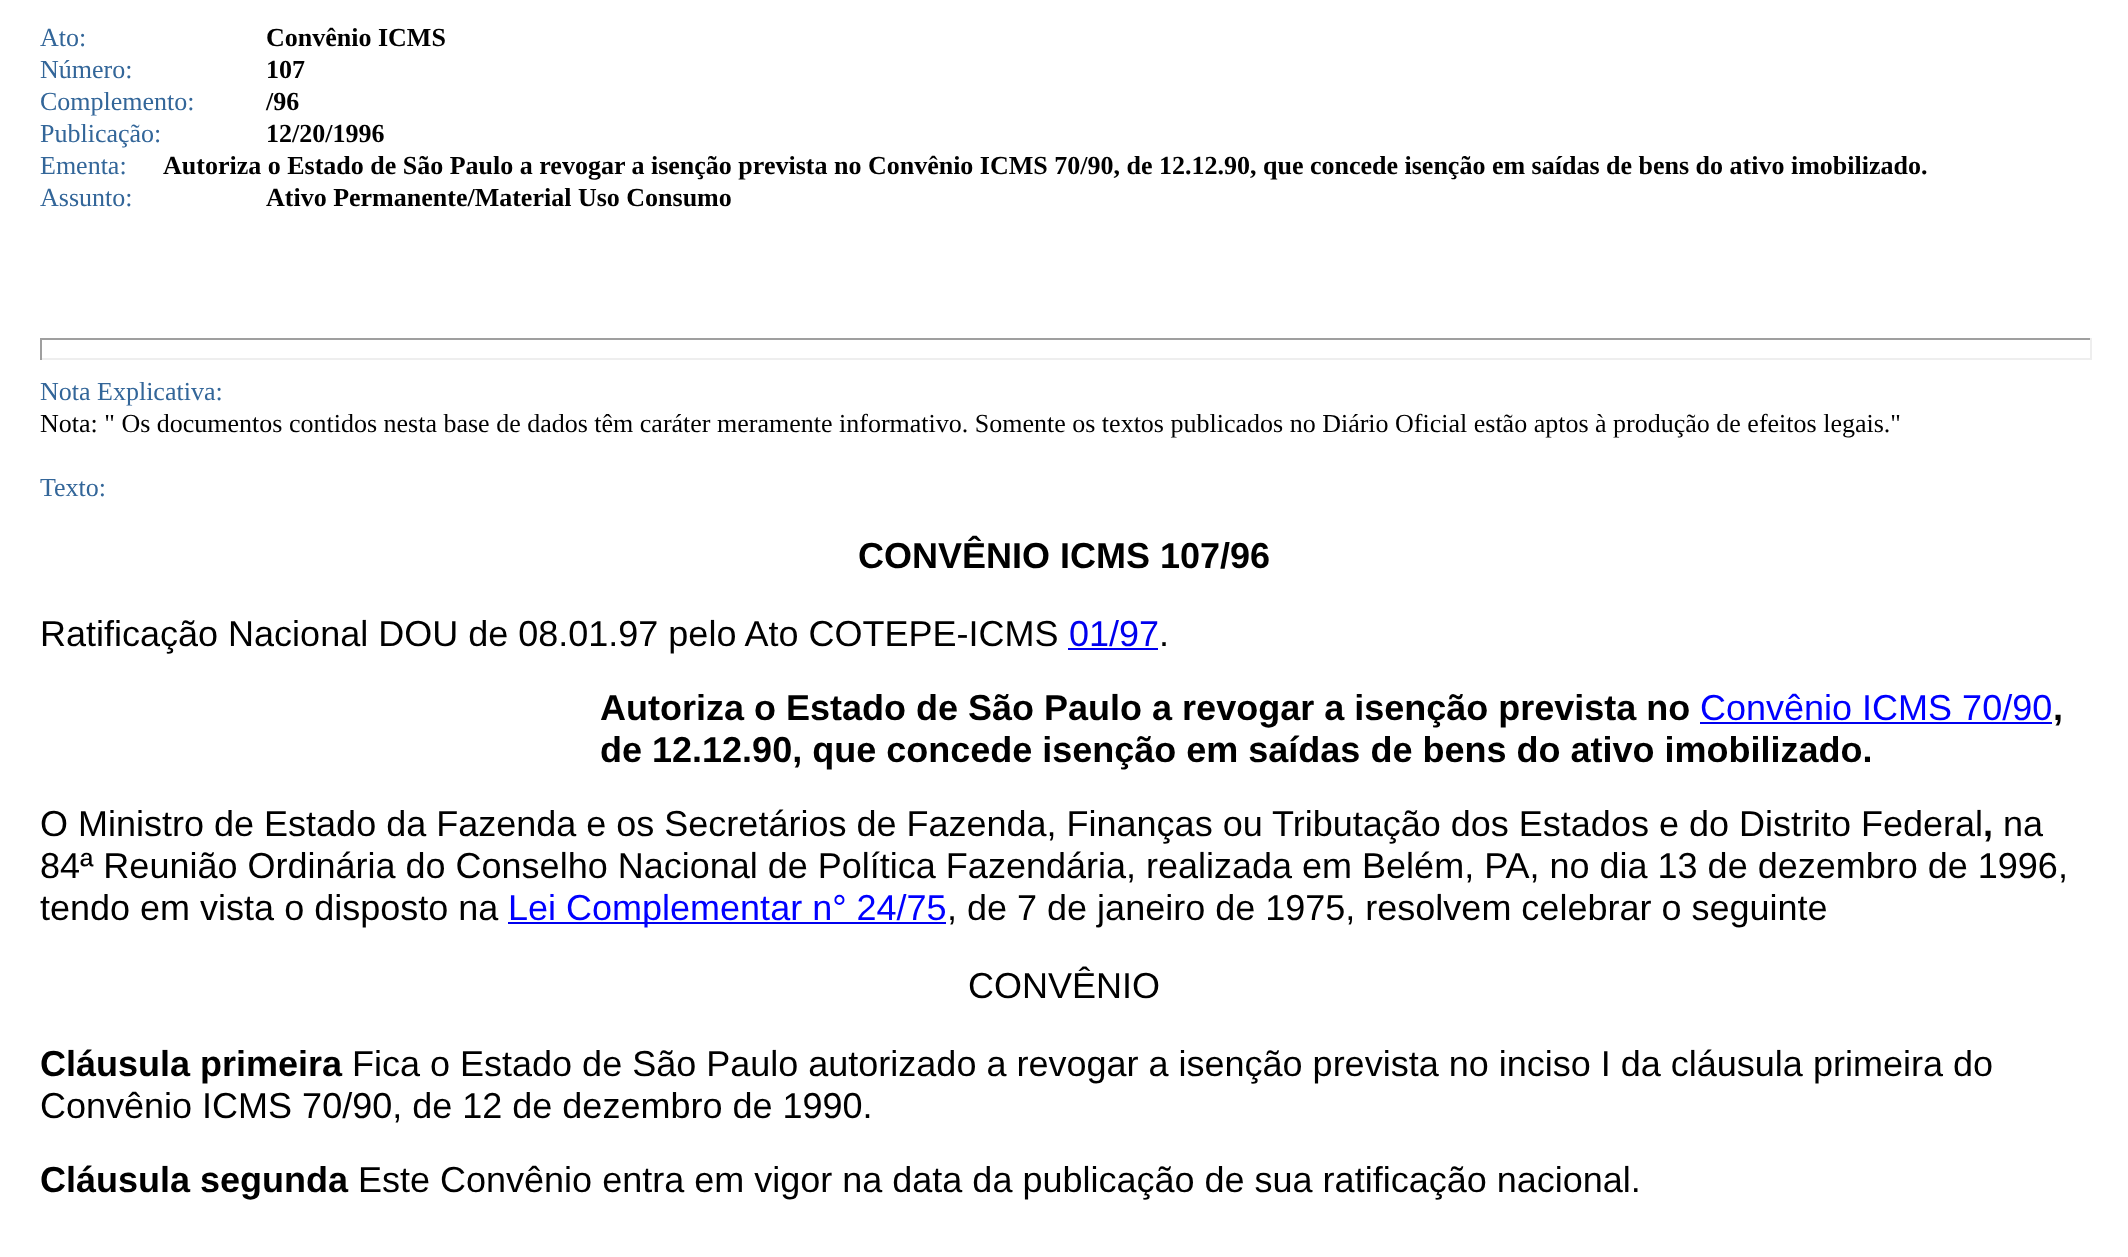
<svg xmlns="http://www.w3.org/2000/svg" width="2128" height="1257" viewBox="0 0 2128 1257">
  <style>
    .t1 { font: 26px Liberation Serif; fill: #369; }
    .t2 { font: bold 26px Liberation Serif; fill: #000; }
    .t3 { font: 26px Liberation Serif; fill: #000; }
    .t4 { font: bold 36px Liberation Sans; fill: #000; }
    .t5 { font: 36px Liberation Sans; fill: #000; }
    .t6 { font: 36px Liberation Sans; fill: #00e; }
    .t7 { font: 36px Liberation Sans; fill: #00f; }
  </style>
  <rect width="100%" height="100%" fill="#fff"/>
  <text x="40" y="46" class="t1">Ato:</text>
  <text x="266" y="46" class="t2">Convênio ICMS</text>
  <text x="40" y="78" class="t1">Número:</text>
  <text x="266" y="78" class="t2">107</text>
  <text x="40" y="110" class="t1">Complemento:</text>
  <text x="266" y="110" class="t2">/96</text>
  <text x="40" y="142" class="t1">Publicação:</text>
  <text x="266" y="142" class="t2">12/20/1996</text>
  <text x="40" y="174" class="t1">Ementa:</text>
  <text x="163" y="174" class="t2">Autoriza o Estado de São Paulo a revogar a isenção prevista no Convênio ICMS 70/90, de 12.12.90, que concede isenção em saídas de bens do ativo imobilizado.</text>
  <text x="40" y="206" class="t1">Assunto:</text>
  <text x="266" y="206" class="t2">Ativo Permanente/Material Uso Consumo</text>
  <rect x="40" y="338" width="2052" height="2" fill="#9f9f9f"/>
  <rect x="2090" y="338" width="2" height="22" fill="#eee"/>
  <rect x="40" y="358" width="2052" height="2" fill="#eee"/>
  <rect x="40" y="338" width="2" height="22" fill="#9f9f9f"/>
  <text x="40" y="400" class="t1">Nota Explicativa:</text>
  <text x="40" y="432" class="t3">Nota: " Os documentos contidos nesta base de dados têm caráter meramente informativo. Somente os textos publicados no Diário Oficial estão aptos à produção de efeitos legais."</text>
  <text x="40" y="496" class="t1">Texto:</text>
  <text x="858" y="568" class="t4">CONVÊNIO ICMS 107/96</text>
  <text x="40" y="646" class="t5">Ratificação Nacional DOU de 08.01.97 pelo Ato COTEPE-ICMS</text>
  <text x="1069" y="646" class="t6">01/97</text>
  <rect x="1068" y="648" width="90" height="2" fill="#00e"/>
  <text x="1159" y="646" class="t5">.</text>
  <text x="600" y="720" class="t4">Autoriza o Estado de São Paulo a revogar a isenção prevista no</text>
  <text x="1700" y="720" class="t7">Convênio ICMS 70/90</text>
  <rect x="1700" y="722" width="352" height="2" fill="#00e"/>
  <text x="2053" y="720" class="t4">,</text>
  <text x="600" y="762" class="t4">de 12.12.90, que concede isenção em saídas de bens do ativo imobilizado.</text>
  <text x="40" y="836" class="t5">O Ministro de Estado da Fazenda e os Secretários de Fazenda, Finanças ou Tributação dos Estados e do Distrito Federal</text>
  <text x="1983" y="836" class="t4">,</text>
  <text x="2003" y="836" class="t5">na</text>
  <text x="40" y="878" class="t5">84ª Reunião Ordinária do Conselho Nacional de Política Fazendária, realizada em Belém, PA, no dia 13 de dezembro de 1996,</text>
  <text x="40" y="920" class="t5">tendo em vista o disposto na</text>
  <rect x="508" y="922" width="438" height="2" fill="#00e"/>
  <text x="508" y="920" class="t7">Lei Complementar n° 24/75</text>
  <text x="947" y="920" class="t5">, de 7 de janeiro de 1975, resolvem celebrar o seguinte</text>
  <text x="968" y="998" class="t5">CONVÊNIO</text>
  <text x="40" y="1076" class="t4">Cláusula primeira</text>
  <text x="352" y="1076" class="t5">Fica o Estado de São Paulo autorizado a revogar a isenção prevista no inciso I da cláusula primeira do</text>
  <text x="40" y="1118" class="t5">Convênio ICMS 70/90, de 12 de dezembro de 1990.</text>
  <text x="40" y="1192" class="t4">Cláusula segunda</text>
  <text x="358" y="1192" class="t5">Este Convênio entra em vigor na data da publicação de sua ratificação nacional.</text>
</svg>
